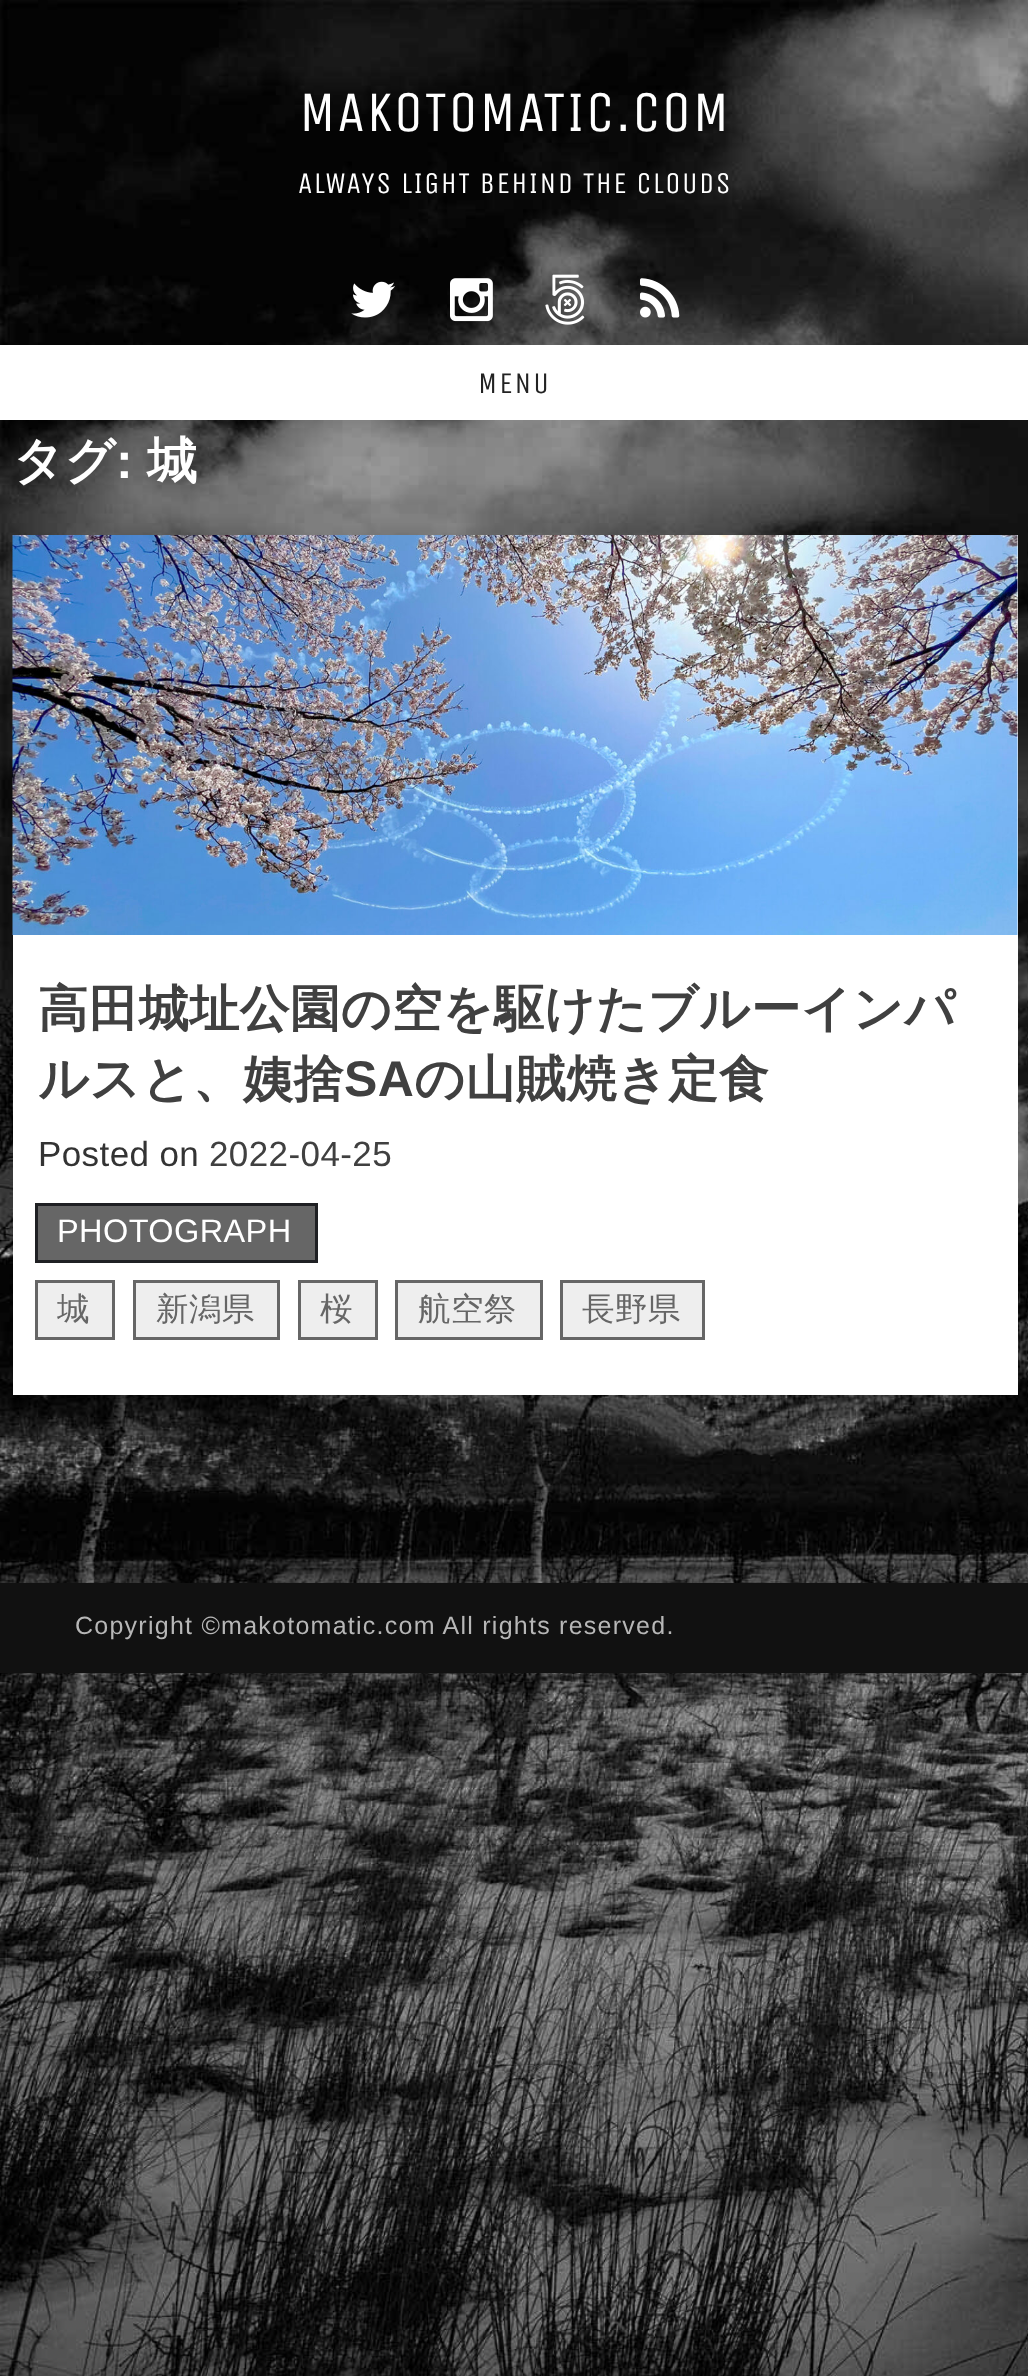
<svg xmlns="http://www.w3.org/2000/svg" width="1028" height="2376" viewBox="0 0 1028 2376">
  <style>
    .t1 { font: 57.5px Unica One; letter-spacing: 1.45px; fill: #fff; }
    .t2 { font: 30px Unica One; letter-spacing: 1.45px; fill: #fff; }
    .t3 { font: 30px Unica One; letter-spacing: 2px; fill: #222; }
    .t4 { font: bold 50px WenQuanYi Zen Hei; letter-spacing: 0.4px; fill: #fff; }
    .t5 { font: bold 50px Liberation Sans; letter-spacing: 0.4px; fill: #fff; }
    .t6 { font: bold 50px WenQuanYi Zen Hei; letter-spacing: 0.4px; fill: #404040; }
    .t7 { font: bold 50px Liberation Sans; letter-spacing: 0.4px; fill: #404040; }
    .t8 { font: 35px Liberation Sans; letter-spacing: 0.4px; fill: #333; }
    .t9 { font: 35px Liberation Sans; letter-spacing: 0.4px; fill: #404040; }
    .t10 { font: 32.5px Liberation Sans; letter-spacing: 0.4px; fill: #fff; }
    .t11 { font: 500 32.5px WenQuanYi Zen Hei; letter-spacing: 0.4px; fill: #666; }
    .t12 { font: 25px Liberation Sans; letter-spacing: 1.25px; fill: #b7b7b7; }
  </style>
  <rect width="100%" height="100%" fill="#fff"/>
  <image x="0" y="0" width="1028" height="2376" href="images/1.png"/>
  <text x="299" y="131" class="t1">MAKOTOMATIC.COM</text>
  <text x="298" y="193" class="t2">ALWAYS LIGHT BEHIND THE CLOUDS</text>
  <image x="351" y="281" width="44" height="37" href="images/2.png"/>
  <image x="450" y="278" width="43" height="44" href="images/3.png"/>
  <image x="545" y="274" width="40" height="51" href="images/4.png"/>
  <image x="640" y="278" width="40" height="40" href="images/5.png"/>
  <rect x="0" y="345" width="1028" height="75" fill="#fff"/>
  <text x="478" y="393" class="t3">MENU</text>
  <text x="13" y="478" class="t4">タグ</text>
  <text x="116" y="478" class="t5">:</text>
  <text x="147" y="478" class="t4">城</text>
  <rect x="13" y="535" width="1005" height="860" fill="#fff"/>
  <image x="12" y="535" width="1006" height="400" href="images/6.png"/>
  <text x="38" y="1026" class="t6">高田城址公園の空を駆けたブルーインパ</text>
  <text x="38" y="1096" class="t6">ルスと、姨捨</text>
  <text x="344" y="1096" class="t7">SA</text>
  <text x="414" y="1096" class="t6">の山賊焼き定食</text>
  <text x="38" y="1166" class="t8">Posted on</text>
  <text x="209" y="1166" class="t9">2022-04-25</text>
  <rect x="36.5" y="1204.5" width="280" height="57" fill="#666" stroke="#1f2023" stroke-width="3"/>
  <text x="57" y="1242" class="t10">PHOTOGRAPH</text>
  <rect x="36.5" y="1281.5" width="77" height="57" fill="#eee" stroke="#666" stroke-width="3"/>
  <text x="57" y="1320" class="t11">城</text>
  <rect x="134.5" y="1281.5" width="144" height="57" fill="#eee" stroke="#666" stroke-width="3"/>
  <text x="156" y="1320" class="t11">新潟県</text>
  <rect x="299.5" y="1281.5" width="77" height="57" fill="#eee" stroke="#666" stroke-width="3"/>
  <text x="320" y="1320" class="t11">桜</text>
  <rect x="396.5" y="1281.5" width="145" height="57" fill="#eee" stroke="#666" stroke-width="3"/>
  <text x="418" y="1320" class="t11">航空祭</text>
  <rect x="561.5" y="1281.5" width="142" height="57" fill="#eee" stroke="#666" stroke-width="3"/>
  <text x="582" y="1320" class="t11">長野県</text>
  <rect x="0" y="1583" width="1028" height="90" fill="#111"/>
  <text x="75" y="1634" class="t12">Copyright ©makotomatic.com All rights reserved.</text>
</svg>
